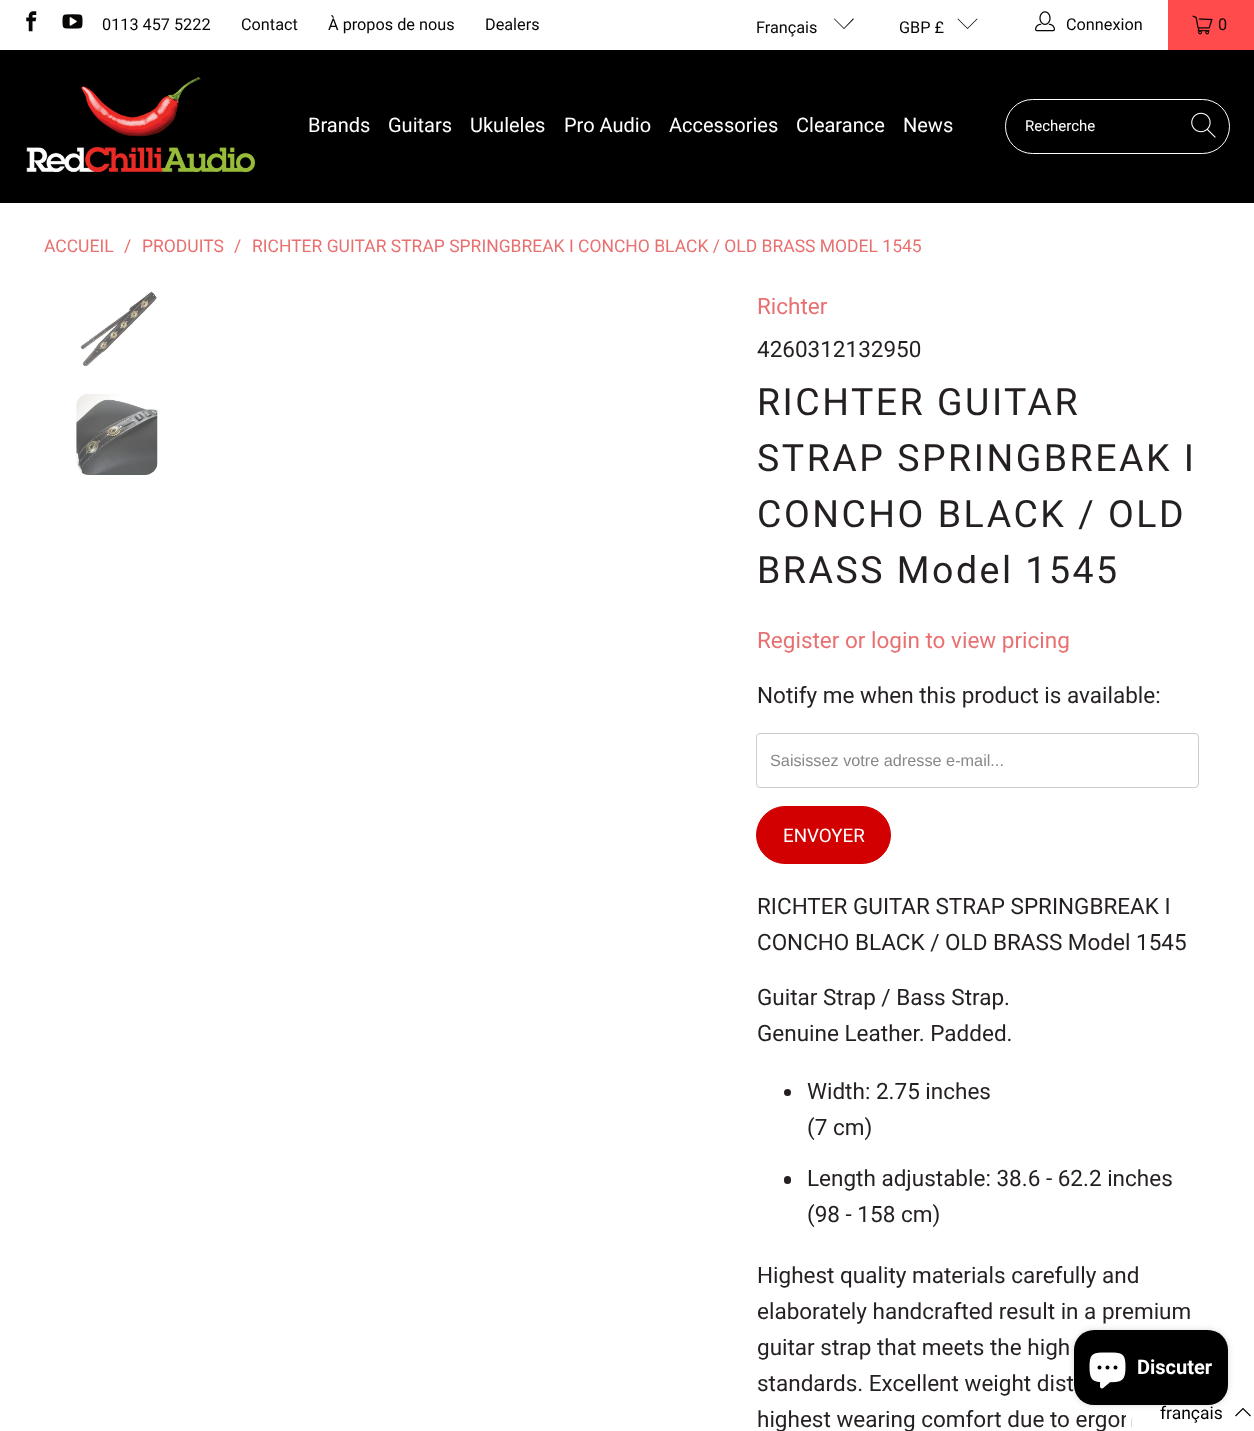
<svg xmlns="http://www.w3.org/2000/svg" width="1254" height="1431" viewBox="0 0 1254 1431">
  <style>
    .t1 { font: 16.25px Roboto; fill: #080505; }
    .t2 { font: 20px Roboto; fill: #fff; }
    .t3 { font: 15px Roboto; fill: #fff; }
    .t4 { font: 17.5px Roboto; fill: #e97070; }
    .t5 { font: 22.5px Roboto; fill: #e97070; }
    .t6 { font: 22.5px Roboto; fill: #241f21; }
    .t7 { font: 37.5px Roboto; letter-spacing: 2.5px; fill: #241f21; }
    .t8 { font: 16.25px Liberation Sans; fill: #888; }
    .t9 { font: 18.75px Roboto; fill: #fff; }
    .t10 { font: bold 20px Roboto; fill: #fff; }
    .t11 { font: 17.5px Roboto; fill: #000; }
  </style>
  <rect width="100%" height="100%" fill="#fff"/>
  <image x="26" y="11" width="11" height="21" href="images/1.png"/>
  <image x="62" y="14" width="21" height="15" href="images/2.png"/>
  <text x="102" y="30" class="t1">0113 457 5222</text>
  <text x="241" y="30" class="t1">Contact</text>
  <text x="328" y="30" class="t1">À propos de nous</text>
  <text x="485" y="30" class="t1">Dealers</text>
  <text x="756" y="33" class="t1">Français</text>
  <path d="M844 29L834 19L834.5 18.5L844 28L853 18.5L854 19Z" fill="#080505"/>
  <text x="899" y="33" class="t1">GBP £</text>
  <path d="M967.5 29L957.5 19L958 18.5L967.5 28L977 18.5L977.5 19Z" fill="#080505"/>
  <image x="1035" y="11" width="20" height="21" href="images/3.png"/>
  <text x="1066" y="30" class="t1">Connexion</text>
  <rect x="1168" y="0" width="86" height="50" fill="#ff4b4b"/>
  <image x="1192" y="15" width="21" height="20" href="images/4.png"/>
  <text x="1218" y="30" class="t1">0</text>
  <rect x="0" y="50" width="1254" height="153" fill="#000"/>
  <image x="26" y="77" width="230" height="96" href="images/5.png"/>
  <text x="308" y="132" class="t2">Brands</text>
  <text x="388" y="132" class="t2">Guitars</text>
  <text x="470" y="132" class="t2">Ukuleles</text>
  <text x="564" y="132" class="t2">Pro Audio</text>
  <text x="669" y="132" class="t2">Accessories</text>
  <text x="796" y="132" class="t2">Clearance</text>
  <text x="903" y="132" class="t2">News</text>
  <rect x="1005.5" y="99.5" width="224" height="54" rx="27" fill="none" stroke="#fff"/>
  <text x="1025" y="131" class="t3">Recherche</text>
  <image x="1191" y="112" width="25" height="26" href="images/6.png"/>
  <text x="44" y="252" class="t4">ACCUEIL</text>
  <text x="124" y="252" class="t4">/</text>
  <text x="142" y="252" class="t4">PRODUITS</text>
  <text x="234" y="252" class="t4">/</text>
  <text x="252" y="252" class="t4">RICHTER GUITAR STRAP SPRINGBREAK I CONCHO BLACK / OLD BRASS MODEL 1545</text>
  <image x="80" y="291" width="77" height="76" href="images/7.png"/>
  <image x="76" y="394" width="82" height="81" href="images/8.png"/>
  <text x="757" y="314" class="t5">Richter</text>
  <text x="757" y="357" class="t6">4260312132950</text>
  <text x="757" y="415" class="t7">RICHTER GUITAR</text>
  <text x="757" y="471" class="t7">STRAP SPRINGBREAK I</text>
  <text x="757" y="527" class="t7">CONCHO BLACK / OLD</text>
  <text x="757" y="583" class="t7">BRASS Model 1545</text>
  <text x="757" y="648" class="t5">Register or login to view pricing</text>
  <text x="757" y="703" class="t6">Notify me when this product is available:</text>
  <rect x="756.5" y="733.5" width="442" height="54" rx="3.5" fill="none" stroke="#ccc"/>
  <text x="770" y="766" class="t8">Saisissez votre adresse e-mail...</text>
  <rect x="756.5" y="806.5" width="134" height="57" rx="28.5" fill="#d20000" stroke="#d20000"/>
  <text x="783" y="842" class="t9">ENVOYER</text>
  <text x="757" y="914" class="t6">RICHTER GUITAR STRAP SPRINGBREAK I</text>
  <text x="757" y="950" class="t6">CONCHO BLACK / OLD BRASS Model 1545</text>
  <text x="757" y="1005" class="t6">Guitar Strap / Bass Strap.</text>
  <text x="757" y="1041" class="t6">Genuine Leather. Padded.</text>
  <circle cx="787.5" cy="1092.5" r="3.5" fill="#241f21"/>
  <text x="807" y="1099" class="t6">Width: 2.75 inches</text>
  <text x="807" y="1135" class="t6">(7 cm)</text>
  <rect x="784" y="1176" width="7" height="8" rx="3.5" fill="#241f21"/>
  <text x="807" y="1186" class="t6">Length adjustable: 38.6 - 62.2 inches</text>
  <text x="807" y="1222" class="t6">(98 - 158 cm)</text>
  <text x="757" y="1283" class="t6">Highest quality materials carefully and</text>
  <text x="757" y="1319" class="t6">elaborately handcrafted result in a premium</text>
  <text x="757" y="1355" class="t6">guitar strap that meets the high</text>
  <text x="757" y="1391" class="t6">standards. Excellent weight dist</text>
  <text x="757" y="1427" class="t6">highest wearing comfort due to ergon</text>
  <rect x="1126" y="1414" width="5" height="13" fill="#fff"/>
  <path d="M1250.5 1416L1243 1408.5L1235.5 1416" fill="none" stroke="#000" stroke-width="1.2"/>
  <rect x="1074" y="1330" width="154" height="75" rx="20" fill="#00000026" filter="blur(3px)"/>
  <rect x="1074" y="1330" width="154" height="75" rx="20" fill="#000"/>
  <image x="1089" y="1352" width="37" height="37" href="images/9.png"/>
  <text x="1137" y="1374" class="t10">Discuter</text>
  <text x="1160" y="1419" class="t11">français</text>
</svg>
